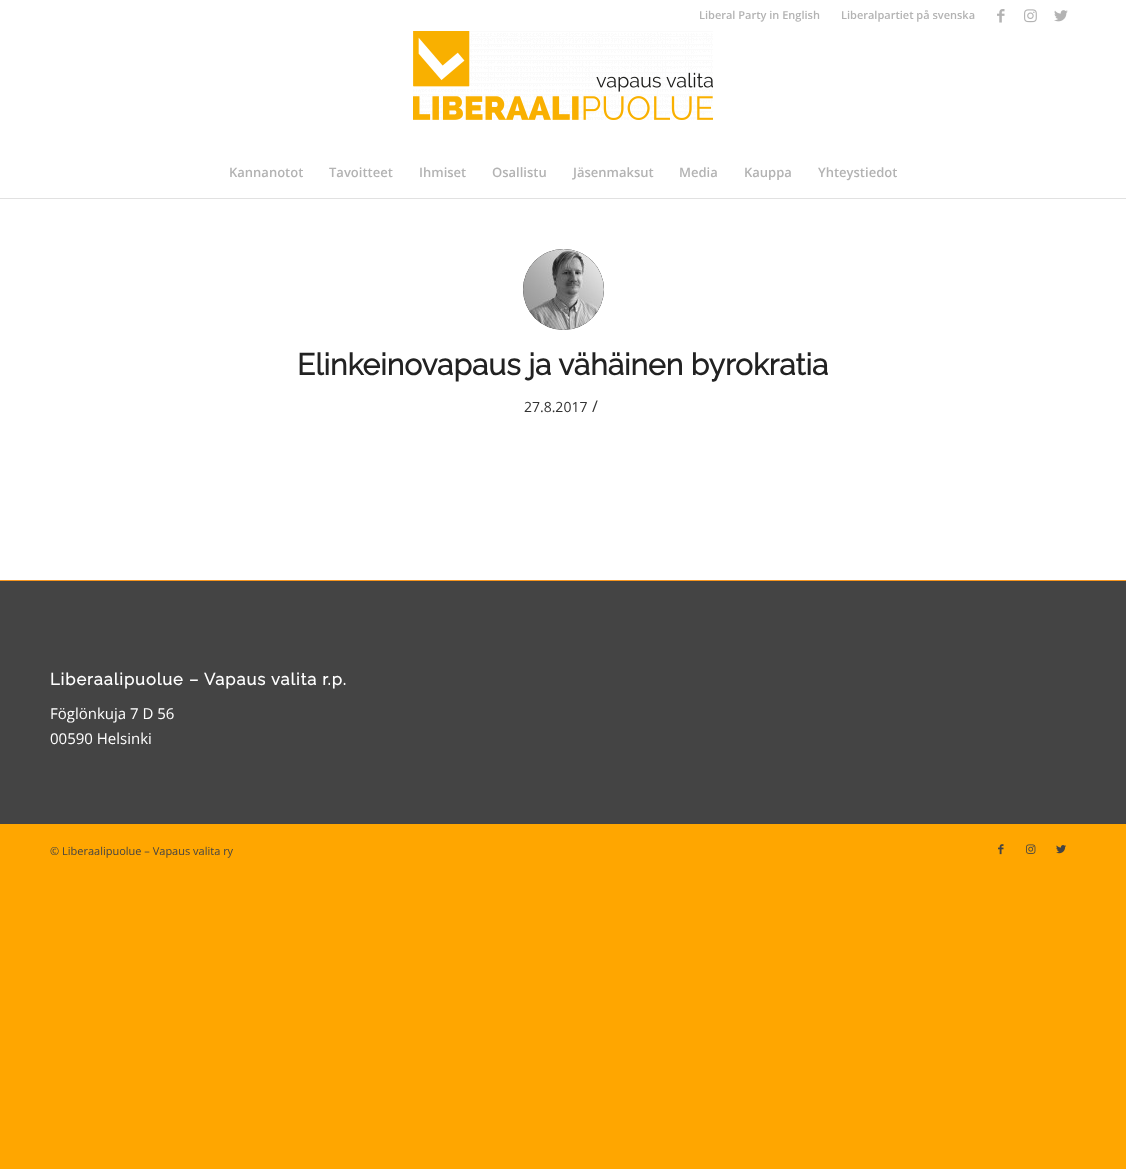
<svg xmlns="http://www.w3.org/2000/svg" width="1126" height="1169" viewBox="0 0 1126 1169">
  <style>
    .t1 { font: 600 11px Open Sans; fill: #b3b3b3; }
    .t2 { font: 600 13px Open Sans; fill: #b3b3b3; }
    .t3 { font: bold 30px Raleway; fill: #222; }
    .t4 { font: 14px Open Sans; fill: #333; }
    .t5 { font: 16px Open Sans; fill: #333; }
    .t6 { font: bold 16.5px Raleway; letter-spacing: 1px; fill: #fff; }
    .t7 { font: 15px Open Sans; fill: #fff; }
    .t8 { font: 11px Open Sans; fill: #444; }
  </style>
  <rect width="100%" height="100%" fill="#ffa600"/>
  <rect x="0" y="0" width="1126" height="580" fill="#fff"/>
  <text x="699" y="19" class="t1">Liberal Party in English</text>
  <text x="841" y="19" class="t1">Liberalpartiet på svenska</text>
  <image x="997" y="9" width="8" height="14" href="images/1.png"/>
  <image x="1024" y="9" width="13" height="14" href="images/2.png"/>
  <image x="1054" y="10" width="14" height="12" href="images/3.png"/>
  <image x="413" y="31" width="300" height="89" href="images/4.png"/>
  <text x="229" y="177" class="t2">Kannanotot</text>
  <text x="329" y="177" class="t2">Tavoitteet</text>
  <text x="419" y="177" class="t2">Ihmiset</text>
  <text x="492" y="177" class="t2">Osallistu</text>
  <text x="573" y="177" class="t2">Jäsenmaksut</text>
  <text x="679" y="177" class="t2">Media</text>
  <text x="744" y="177" class="t2">Kauppa</text>
  <text x="818" y="177" class="t2">Yhteystiedot</text>
  <rect x="0" y="198" width="1126" height="1" fill="#e1e1e1"/>
  <circle cx="563.5" cy="289.5" r="40.5" fill="#333"/>
  <image x="523" y="249" width="81" height="81" href="images/5.png"/>
  <text x="297" y="375" class="t3">Elinkeinovapaus ja vähäinen byrokratia</text>
  <text x="524" y="412" class="t4">27.8.2017</text>
  <text x="592" y="412" class="t5">/</text>
  <rect x="0" y="581" width="1126" height="243" fill="#444"/>
  <rect x="0" y="580" width="1126" height="1" fill="#f7951d"/>
  <text x="50" y="685" class="t6">Liberaalipuolue – Vapaus valita r.p.</text>
  <text x="50" y="719" class="t7">Föglönkuja 7 D 56</text>
  <text x="50" y="744" class="t7">00590 Helsinki</text>
  <text x="50" y="855" class="t8">© Liberaalipuolue – Vapaus valita ry</text>
  <image x="998" y="844" width="6" height="11" href="images/6.png"/>
  <image x="1026" y="844" width="10" height="10" href="images/7.png"/>
  <image x="1056" y="845" width="10" height="9" href="images/8.png"/>
</svg>
